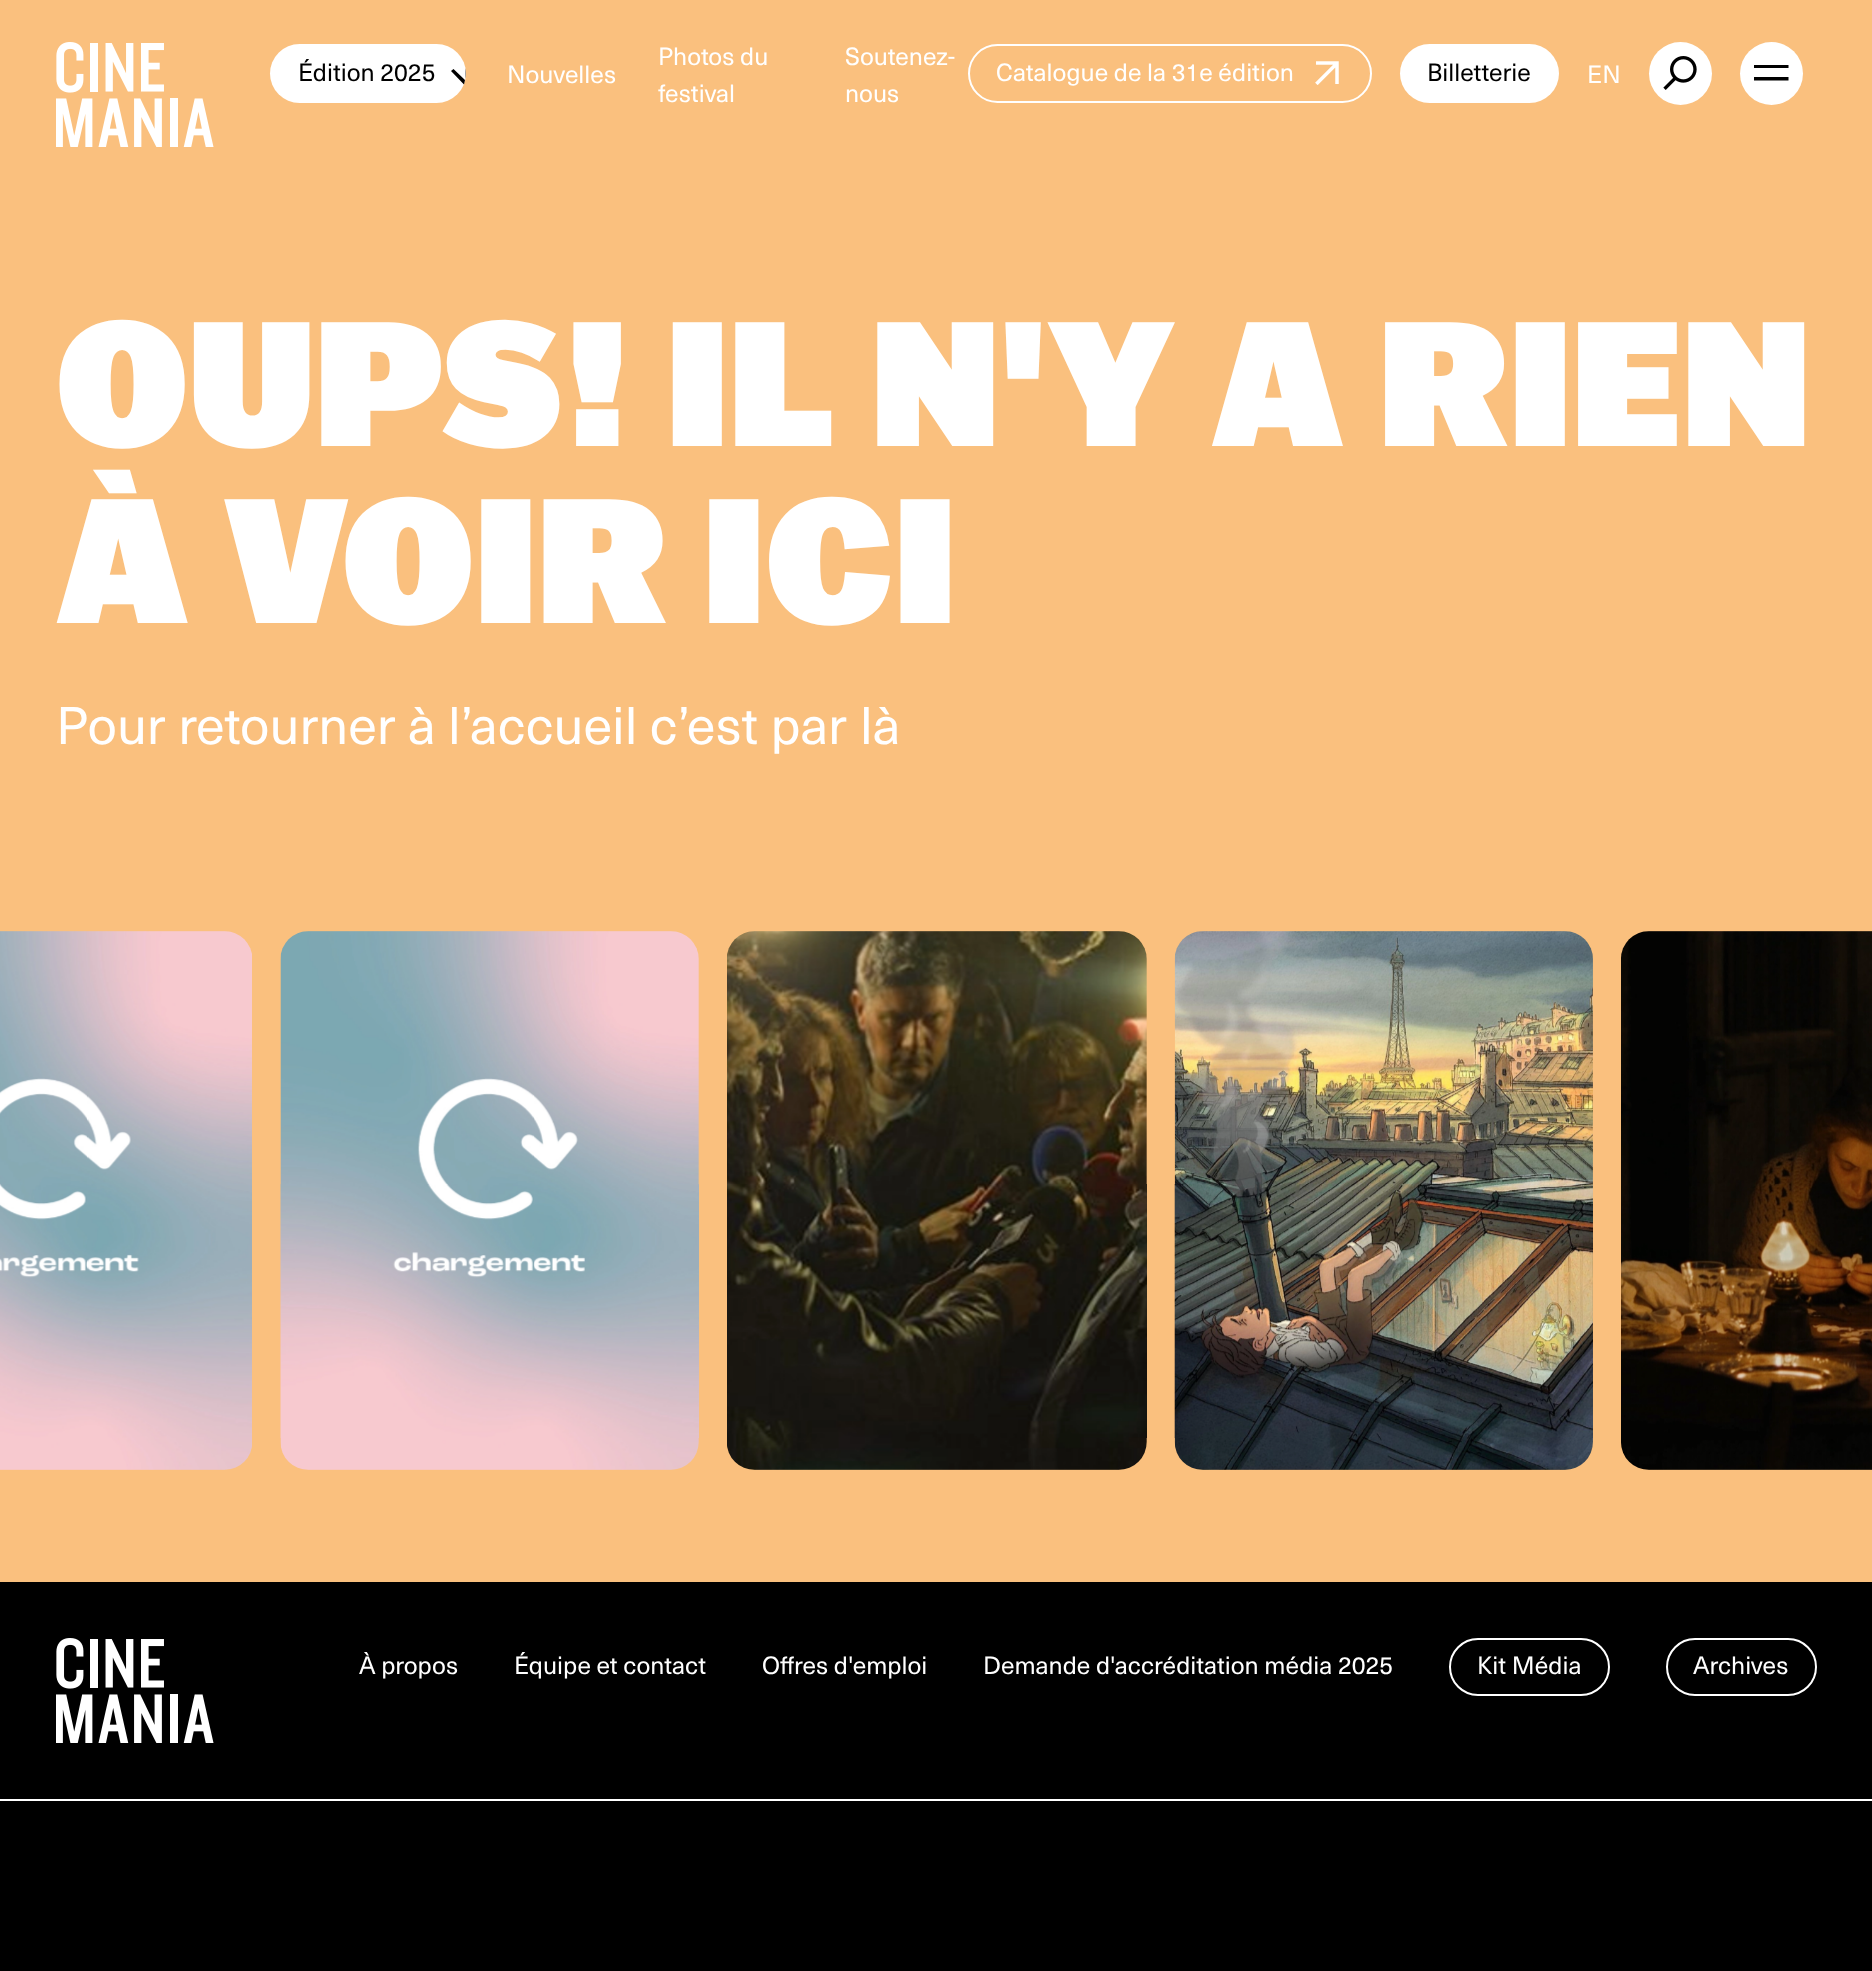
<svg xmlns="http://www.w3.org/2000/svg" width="1872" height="1971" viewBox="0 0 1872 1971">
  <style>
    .t1 { font: 24.5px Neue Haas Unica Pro; fill: #000; }
    .t2 { font: 24.5px Neue Haas Unica Pro; fill: #fff; }
    .t3 { font: 800 176.75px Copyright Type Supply; fill: #fff; }
    .t4 { font: 52px Neue Haas Unica Pro; fill: #fff; }
  </style>
  <defs>
    <radialGradient id="g1" gradientUnits="userSpaceOnUse" cx="0" cy="0" r="1" gradientTransform="matrix(588 0 0 625 858 74)"><stop offset="0.34" stop-color="#b1b1b1"/><stop offset="0.54" stop-color="#ededed"/><stop offset="0.67" stop-color="#fff"/></radialGradient>
    <radialGradient id="g2" gradientUnits="userSpaceOnUse" cx="0" cy="0" r="1" gradientTransform="matrix(478 0 0 625 1878 74)"><stop offset="0.34" stop-color="#b1b1b1"/><stop offset="0.54" stop-color="#ededed"/><stop offset="0.67" stop-color="#fff"/></radialGradient>
    <radialGradient id="g3" gradientUnits="userSpaceOnUse" cx="0" cy="0" r="1" gradientTransform="matrix(189 0 0 662 1838 74)"><stop offset="0.34" stop-color="#b1b1b1"/><stop offset="0.54" stop-color="#ededed"/><stop offset="0.67" stop-color="#fff"/></radialGradient>
    <radialGradient id="g4" gradientUnits="userSpaceOnUse" cx="0" cy="0" r="1" gradientTransform="matrix(189 0 0 662 1929 74)"><stop offset="0.34" stop-color="#b1b1b1"/><stop offset="0.54" stop-color="#ededed"/><stop offset="0.67" stop-color="#fff"/></radialGradient>
    <clipPath id="clip1"><rect x="1754" y="56" width="35" height="35"/></clipPath>
    <radialGradient id="g5" gradientUnits="userSpaceOnUse" cx="0" cy="0" r="1" gradientTransform="matrix(481 0 0 606 1930 1667)"><stop offset="0.34" stop-color="#f08152"/><stop offset="0.54" stop-color="#fac07e"/><stop offset="0.67" stop-color="#000"/></radialGradient>
    <radialGradient id="g6" gradientUnits="userSpaceOnUse" cx="0" cy="0" r="1" gradientTransform="matrix(453 0 0 606 2119 1667)"><stop offset="0.34" stop-color="#f08152"/><stop offset="0.54" stop-color="#fac07e"/><stop offset="0.67" stop-color="#000"/></radialGradient>
  </defs>
  <rect width="100%" height="100%" fill="#fac07e"/>
  <image x="56" y="42" width="158" height="105" href="images/1.png"/>
  <rect x="270" y="44" width="196" height="59" rx="29.5" fill="url(#g1)"/>
  <text x="298" y="81" class="t1">Édition 2025</text>
  <path d="M465.5 68V79C466 75.5 466 71.5 465.5 68ZM465 80L464 84.5L451 71L453.5 69Z" fill="#000" fill-rule="evenodd"/>
  <text x="507" y="83" class="t2">Nouvelles</text>
  <text x="658" y="65" class="t2">Photos du</text>
  <text x="658" y="102" class="t2">festival</text>
  <text x="845" y="65" class="t2">Soutenez-</text>
  <text x="845" y="102" class="t2">nous</text>
  <image x="1315" y="61" width="24" height="24" href="images/2.png"/>
  <rect x="969" y="45" width="402" height="57" rx="28.5" fill="none" stroke="#fff" stroke-width="2"/>
  <text x="996" y="81" class="t2">Catalogue de la 31e édition</text>
  <rect x="1400" y="44" width="159" height="59" rx="29.5" fill="url(#g2)"/>
  <text x="1427" y="81" class="t1">Billetterie</text>
  <text x="1587" y="83" class="t2">EN</text>
  <circle cx="1680.5" cy="73.5" r="31.5" fill="url(#g3)"/>
  <image x="1663" y="56" width="34" height="34" href="images/3.png"/>
  <circle cx="1771.5" cy="73.5" r="31.5" fill="url(#g4)"/>
  <g clip-path="url(#clip1)">
    <path d="M1753.5 68H1788.5V65H1753.5ZM1753.5 80.5H1788.5V77H1753.5Z" fill="#000" fill-rule="evenodd"/>
  </g>
  <text x="56" y="446" class="t3">OUPS! IL N'Y A RIEN</text>
  <text x="56" y="623" class="t3">À VOIR ICI</text>
  <text x="56" y="744" word-spacing="0.5" class="t4">Pour retourner à l’accueil c’est par</text>
  <text x="860" y="744" class="t4">là</text>
  <image x="0" y="931" width="252" height="539" href="images/4.png"/>
  <image x="280" y="931" width="419" height="539" href="images/5.png"/>
  <image x="727" y="931" width="420" height="539" href="images/6.png"/>
  <image x="1174" y="931" width="419" height="539" href="images/7.png"/>
  <image x="1621" y="931" width="251" height="539" href="images/8.png"/>
  <rect x="0" y="1582" width="1872" height="389" fill="#000"/>
  <rect x="0" y="1799" width="1872" height="2" fill="#fff"/>
  <image x="56" y="1638" width="158" height="105" href="images/9.png"/>
  <text x="359" y="1674" class="t2">À propos</text>
  <text x="514" y="1674" class="t2">Équipe et contact</text>
  <text x="762" y="1674" class="t2">Offres d'emploi</text>
  <text x="983" y="1674" class="t2">Demande d'accréditation média 2025</text>
  <rect x="1449" y="1638" width="161" height="58" rx="29" fill="url(#g5)"/>
  <rect x="1450" y="1639" width="159" height="56" rx="28" fill="none" stroke="#fff" stroke-width="2"/>
  <text x="1477" y="1674" class="t2">Kit Média</text>
  <rect x="1666" y="1638" width="151" height="58" rx="29" fill="url(#g6)"/>
  <rect x="1667" y="1639" width="149" height="56" rx="28" fill="none" stroke="#fff" stroke-width="2"/>
  <text x="1693" y="1674" class="t2">Archives</text>
</svg>
